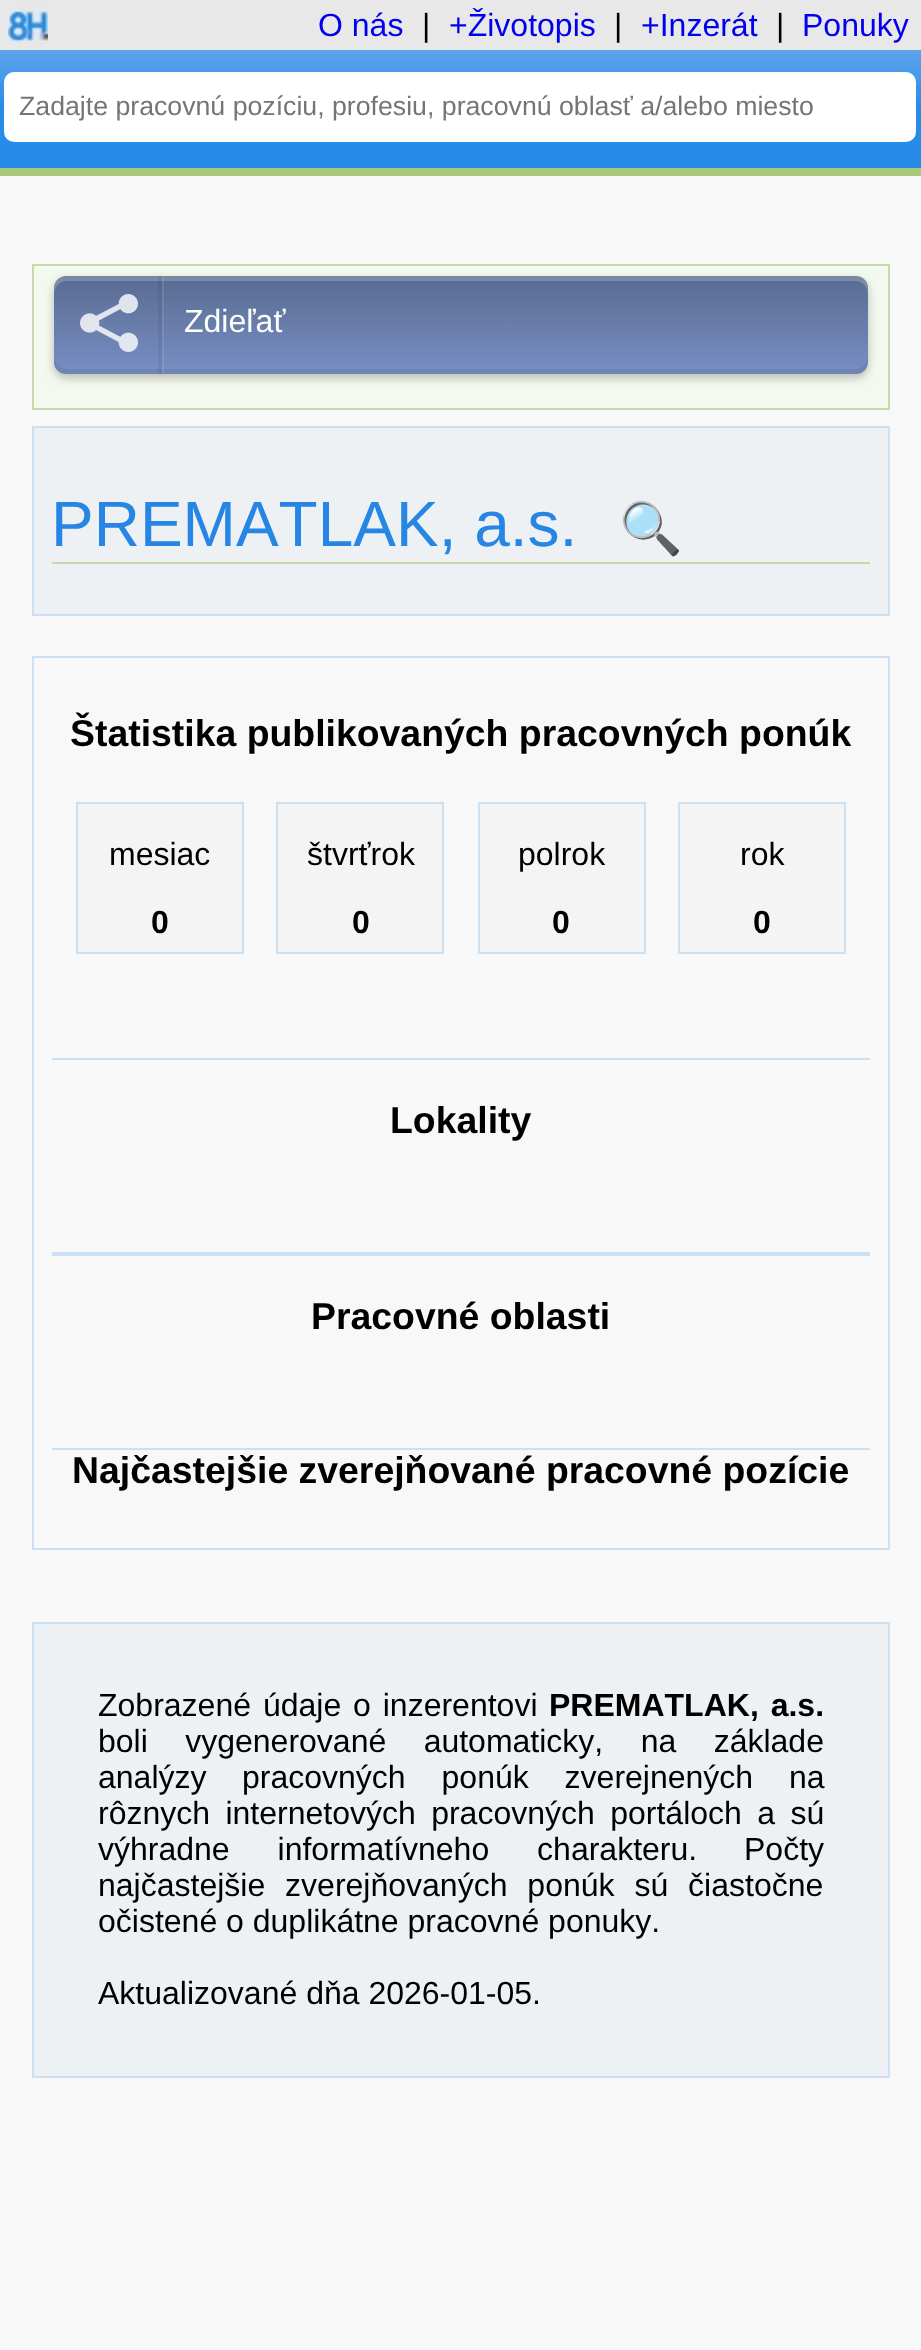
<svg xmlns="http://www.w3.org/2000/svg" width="921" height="2350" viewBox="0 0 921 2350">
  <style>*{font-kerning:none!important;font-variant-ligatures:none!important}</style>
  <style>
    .t1 { font: 32px Liberation Sans; fill: #00e; }
    .t2 { font: 32px Liberation Sans; fill: #000; }
    .t3 { font: 26.7px Liberation Sans; fill: #757575; }
    .t4 { font: 32px Liberation Sans; fill: #fdfefc; }
    .t5 { font: 64px Liberation Sans; fill: #2786e4; }
    .t6 { font: 51px Noto Color Emoji; fill: #000; }
    .t7 { font: bold 37.4px Liberation Sans; fill: #000; }
    .t8 { font: bold 32px Liberation Sans; fill: #000; }
  </style>
  <defs>
    <linearGradient id="g1" gradientUnits="userSpaceOnUse" x1="461" y1="50" x2="461" y2="168"><stop offset="0" stop-color="#5ea4ea"/><stop offset="0.5" stop-color="#278ce8"/></linearGradient>
    <linearGradient id="g2" gradientUnits="userSpaceOnUse" x1="461" y1="374" x2="461" y2="276"><stop offset="0" stop-color="#788fc5"/><stop offset="1" stop-color="#596b91"/></linearGradient>
  </defs>
  <rect width="100%" height="100%" fill="#f8f8f8"/>
  <rect x="0" y="0" width="921" height="50" fill="#e8e8e8"/>
  <rect x="0" y="50" width="921" height="118" fill="url(#g1)"/>
  <rect x="0" y="168" width="921" height="8" fill="#a8cb7b"/>
  <image x="8" y="6" width="40" height="40" href="images/1.png"/>
  <text x="318" y="36" class="t1">O nás</text>
  <text x="422" y="36" class="t2">|</text>
  <text x="449" y="36" class="t1">+Životopis</text>
  <text x="614" y="36" class="t2">|</text>
  <text x="641" y="36" class="t1">+Inzerát</text>
  <text x="776" y="36" class="t2">|</text>
  <text x="802" y="36" class="t1">Ponuky</text>
  <rect x="4" y="72" width="912" height="70" rx="10" fill="#fff"/>
  <text x="19" y="115" class="t3">Zadajte pracovnú pozíciu, profesiu, pracovnú oblasť a/alebo miesto</text>
  <rect x="33" y="265" width="856" height="144" fill="#f3f9ef" stroke="#c5dba9" stroke-width="2"/>
  <rect x="54" y="280" width="814" height="98" rx="12" fill="#3132304d" filter="blur(5px)"/>
  <rect x="54" y="276" width="814" height="98" rx="12" fill="url(#g2)"/>
  <path d="M67 281H855C862 281 868 287 868 294V288C868 281 863 276 856 276H66C59 276 54 281 54 288V294C54 287 60 281 67 281Z" fill="#fdfefc33"/>
  <path d="M54 356V362C54 369 59 374 66 374H856C863 374 868 369 868 362V356C868 363 862 369 855 369H67C60 369 54 363 54 356Z" fill="#3132301a"/>
  <rect x="158" y="276" width="4" height="98" fill="#3132301a"/>
  <rect x="162" y="276" width="2" height="98" fill="#fdfefc1a"/>
  <image x="80" y="294" width="58" height="58" href="images/2.png"/>
  <text x="184" y="332" class="t4">Zdieľať</text>
  <rect x="33" y="427" width="856" height="188" fill="#edf1f4" stroke="#cddff3" stroke-width="2"/>
  <rect x="52" y="562" width="818" height="2" fill="#c5dba9"/>
  <text x="51" y="546" class="t5">PREMATLAK, a.s.</text>
  <text x="619" y="546" class="t6">🔍</text>
  <rect x="33" y="657" width="856" height="892" fill="none" stroke="#cddff3" stroke-width="2"/>
  <text x="70" y="746" class="t7">Štatistika publikovaných pracovných ponúk</text>
  <rect x="77" y="803" width="166" height="150" fill="#f4f4f4" stroke="#cbe0f3" stroke-width="2"/>
  <text x="109" y="865" class="t2">mesiac</text>
  <text x="151" y="933" class="t8">0</text>
  <rect x="277" y="803" width="166" height="150" fill="#f4f4f4" stroke="#cbe0f3" stroke-width="2"/>
  <text x="307" y="865" class="t2">štvrťrok</text>
  <text x="352" y="933" class="t8">0</text>
  <rect x="479" y="803" width="166" height="150" fill="#f4f4f4" stroke="#cbe0f3" stroke-width="2"/>
  <text x="518" y="865" class="t2">polrok</text>
  <text x="552" y="933" class="t8">0</text>
  <rect x="679" y="803" width="166" height="150" fill="#f4f4f4" stroke="#cbe0f3" stroke-width="2"/>
  <text x="740" y="865" class="t2">rok</text>
  <text x="753" y="933" class="t8">0</text>
  <rect x="52" y="1058" width="818" height="2" fill="#cbe0f3"/>
  <rect x="52" y="1252" width="818" height="4" fill="#cbe0f3"/>
  <text x="390" y="1133" class="t7">Lokality</text>
  <rect x="52" y="1448" width="818" height="2" fill="#cbe0f3"/>
  <text x="311" y="1329" class="t7">Pracovné oblasti</text>
  <text x="72" y="1483" class="t7">Najčastejšie zverejňované pracovné pozície</text>
  <rect x="33" y="1623" width="856" height="454" fill="#edf1f4" stroke="#cddff3" stroke-width="2"/>
  <text x="98" y="1716" word-spacing="3" class="t2">Zobrazené údaje o inzerentovi</text>
  <text x="549" y="1716" word-spacing="3" class="t8">PREMATLAK, a.s.</text>
  <text x="98" y="1752" word-spacing="28.5" class="t2">boli vygenerované automaticky, na základe</text>
  <text x="98" y="1788" class="t2">analýzy</text>
  <text x="242" y="1788" word-spacing="27" class="t2">pracovných ponúk zverejnených na</text>
  <text x="98" y="1824" word-spacing="6.5" class="t2">rôznych internetových pracovných portáloch a sú</text>
  <text x="98" y="1860" word-spacing="39" class="t2">výhradne informatívneho charakteru.</text>
  <text x="744" y="1860" class="t2">Počty</text>
  <text x="98" y="1896" word-spacing="11" class="t2">najčastejšie zverejňovaných ponúk sú čiastočne</text>
  <text x="98" y="1932" class="t2">očistené o duplikátne pracovné ponuky.</text>
  <text x="98" y="2004" class="t2">Aktualizované dňa 2026-01-05.</text>
</svg>
